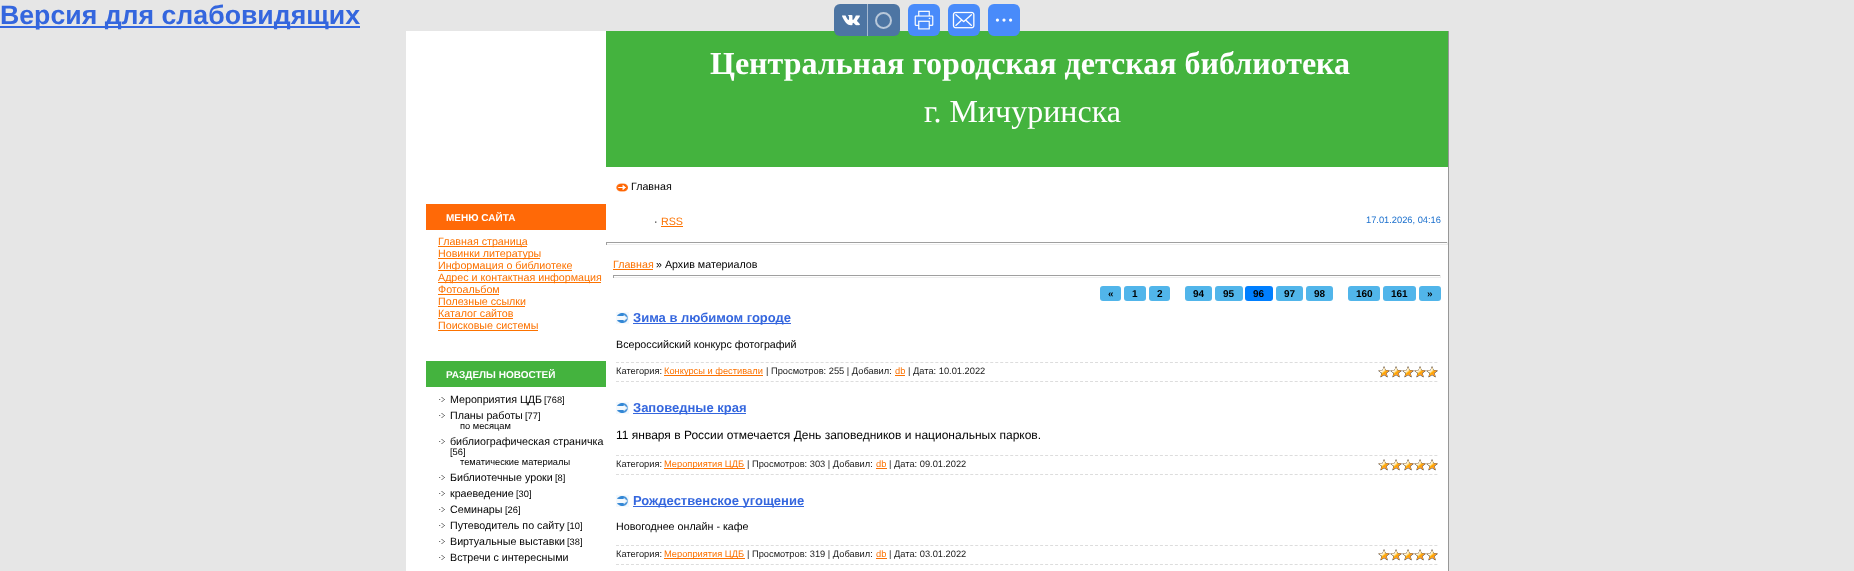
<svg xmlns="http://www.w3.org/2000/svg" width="1854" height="571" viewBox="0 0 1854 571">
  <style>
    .t1 { font: bold 26.7px Liberation Sans; fill: #3466de; }
    .t2 { font: bold 32px Liberation Serif; fill: #fff; }
    .t3 { font: 32px Liberation Serif; fill: #fff; }
    .t4 { font: 10.7px Liberation Sans; fill: #000; }
    .t5 { font: bold 10px Liberation Sans; fill: #fff; }
    .t6 { font: 10.7px Liberation Sans; fill: #fc7200; }
    .t7 { font: 9.3px Liberation Sans; fill: #000; }
    .t8 { font: 9.3px Liberation Sans; fill: #1a6fcd; }
    .t9 { font: bold 10px Liberation Sans; fill: #000; }
    .t10 { font: bold 13px Liberation Sans; fill: #3466de; }
    .t11 { font: 9.3px Liberation Sans; fill: #1a1a1a; }
    .t12 { font: 9.3px Liberation Sans; fill: #fc7200; }
    .t13 { font: 12px Liberation Sans; fill: #000; }
  </style>
  <rect width="100%" height="100%" fill="#e6e6e6"/>
  <rect x="0" y="26" width="360" height="2" fill="#3466de"/>
  <text x="0" y="24" class="t1">Версия для слабовидящих</text>
  <rect x="606" y="31" width="842" height="136" fill="#44b33e"/>
  <rect x="834" y="4" width="66" height="32" rx="6" fill="#4d75a3"/>
  <image x="842" y="15" width="18" height="11" href="images/1.png"/>
  <rect x="867" y="4" width="1" height="32" fill="#a6bad1"/>
  <circle cx="883.5" cy="20.5" r="7.5" fill="none" stroke="#b8c8da" stroke-width="2"/>
  <rect x="908" y="4" width="32" height="32" rx="6" fill="#498bfa"/>
  <image x="914" y="10" width="20" height="20" href="images/2.png"/>
  <rect x="948" y="4" width="32" height="32" rx="6" fill="#498bfa"/>
  <image x="952" y="11" width="23" height="18" href="images/3.png"/>
  <rect x="988" y="4" width="32" height="32" rx="6" fill="#498bfa"/>
  <image x="995" y="18" width="18" height="4" href="images/4.png"/>
  <rect x="1448" y="31" width="1" height="540" fill="#979797"/>
  <rect x="406" y="31" width="200" height="540" fill="#fff"/>
  <text x="710" y="74" class="t2">Центральная городская детская библиотека</text>
  <text x="924" y="122" class="t3">г. Мичуринска</text>
  <rect x="606" y="167" width="842" height="404" fill="#fff"/>
  <image x="616" y="183" width="12" height="9" href="images/5.png"/>
  <text x="631" y="190" class="t4">Главная</text>
  <rect x="426" y="204" width="180" height="26" fill="#ff6907"/>
  <text x="446" y="221" class="t5">МЕНЮ САЙТА</text>
  <rect x="438" y="246" width="89" height="1" fill="#fc7200"/>
  <text x="438" y="245" class="t6">Главная страница</text>
  <rect x="438" y="258" width="102" height="1" fill="#fc7200"/>
  <text x="438" y="257" class="t6">Новинки литературы</text>
  <rect x="438" y="270" width="134" height="1" fill="#fc7200"/>
  <text x="438" y="269" class="t6">Информация о библиотеке</text>
  <rect x="438" y="282" width="163" height="1" fill="#fc7200"/>
  <text x="438" y="281" class="t6">Адрес и контактная информация</text>
  <text x="438" y="293" class="t6">Фотоальбом</text>
  <rect x="438" y="294" width="61" height="1" fill="#fc7200"/>
  <text x="438" y="305" class="t6">Полезные ссылки</text>
  <rect x="438" y="306" width="87" height="1" fill="#fc7200"/>
  <text x="438" y="317" class="t6">Каталог сайтов</text>
  <rect x="438" y="318" width="75" height="1" fill="#fc7200"/>
  <text x="438" y="329" class="t6">Поисковые системы</text>
  <rect x="438" y="330" width="100" height="1" fill="#fc7200"/>
  <rect x="426" y="361" width="180" height="26" fill="#44b33e"/>
  <text x="446" y="378" class="t5">РАЗДЕЛЫ НОВОСТЕЙ</text>
  <image x="439" y="397" width="6" height="5" href="images/6.png"/>
  <text x="450" y="403" class="t4">Мероприятия ЦДБ</text>
  <text x="544" y="403" class="t7">[768]</text>
  <image x="439" y="413" width="6" height="5" href="images/6.png"/>
  <text x="450" y="419" class="t4">Планы работы</text>
  <text x="525" y="419" class="t7">[77]</text>
  <text x="460" y="429" class="t7">по месяцам</text>
  <image x="439" y="439" width="6" height="5" href="images/6.png"/>
  <text x="450" y="445" class="t4">библиографическая страничка</text>
  <text x="450" y="455" class="t7">[56]</text>
  <text x="460" y="465" class="t7">тематические материалы</text>
  <image x="439" y="475" width="6" height="5" href="images/6.png"/>
  <text x="450" y="481" class="t4">Библиотечные уроки</text>
  <text x="555" y="481" class="t7">[8]</text>
  <image x="439" y="491" width="6" height="5" href="images/6.png"/>
  <text x="450" y="497" class="t4">краеведение</text>
  <text x="516" y="497" class="t7">[30]</text>
  <image x="439" y="507" width="6" height="5" href="images/6.png"/>
  <text x="450" y="513" class="t4">Семинары</text>
  <text x="505" y="513" class="t7">[26]</text>
  <image x="439" y="523" width="6" height="5" href="images/6.png"/>
  <text x="450" y="529" class="t4">Путеводитель по сайту</text>
  <text x="567" y="529" class="t7">[10]</text>
  <image x="439" y="539" width="6" height="5" href="images/6.png"/>
  <text x="450" y="545" class="t4">Виртуальные выставки</text>
  <text x="567" y="545" class="t7">[38]</text>
  <image x="439" y="555" width="6" height="5" href="images/6.png"/>
  <text x="450" y="561" class="t4">Встречи с интересными</text>
  <text x="654" y="225" class="t4">·</text>
  <text x="661" y="225" class="t6">RSS</text>
  <rect x="661" y="226" width="22" height="1" fill="#fc7200"/>
  <text x="1366" y="223" class="t8">17.01.2026, 04:16</text>
  <rect x="606" y="242" width="842" height="1" fill="#9f9f9f"/>
  <rect x="1447" y="242" width="1" height="3" fill="#eee"/>
  <rect x="606" y="244" width="842" height="1" fill="#eee"/>
  <rect x="606" y="242" width="1" height="3" fill="#9f9f9f"/>
  <text x="613" y="268" class="t6">Главная</text>
  <rect x="613" y="269" width="40" height="1" fill="#fc7200"/>
  <text x="656" y="268" class="t4">» Архив материалов</text>
  <rect x="613" y="275" width="828" height="1" fill="#9f9f9f"/>
  <rect x="1440" y="275" width="1" height="3" fill="#eee"/>
  <rect x="613" y="277" width="828" height="1" fill="#eee"/>
  <rect x="613" y="275" width="1" height="3" fill="#9f9f9f"/>
  <rect x="1100" y="286" width="21" height="15" rx="3" fill="#51b5ea"/>
  <text x="1108" y="297" class="t9">«</text>
  <rect x="1124" y="286" width="22" height="15" rx="3" fill="#51b5ea"/>
  <text x="1132" y="297" class="t9">1</text>
  <rect x="1149" y="286" width="21" height="15" rx="3" fill="#51b5ea"/>
  <text x="1157" y="297" class="t9">2</text>
  <rect x="1185" y="286" width="27" height="15" rx="3" fill="#51b5ea"/>
  <text x="1193" y="297" class="t9">94</text>
  <rect x="1215" y="286" width="28" height="15" rx="3" fill="#51b5ea"/>
  <text x="1223" y="297" class="t9">95</text>
  <rect x="1245" y="286" width="28" height="15" rx="3" fill="#007fff"/>
  <text x="1253" y="297" class="t9">96</text>
  <rect x="1276" y="286" width="27" height="15" rx="3" fill="#51b5ea"/>
  <text x="1284" y="297" class="t9">97</text>
  <rect x="1306" y="286" width="27" height="15" rx="3" fill="#51b5ea"/>
  <text x="1314" y="297" class="t9">98</text>
  <rect x="1348" y="286" width="32" height="15" rx="3" fill="#51b5ea"/>
  <text x="1356" y="297" class="t9">160</text>
  <rect x="1383" y="286" width="33" height="15" rx="3" fill="#51b5ea"/>
  <text x="1391" y="297" class="t9">161</text>
  <rect x="1419" y="286" width="22" height="15" rx="3" fill="#51b5ea"/>
  <text x="1427" y="297" class="t9">»</text>
  <image x="616" y="312" width="13" height="12" href="images/7.png"/>
  <rect x="633" y="323" width="158" height="1" fill="#3466de"/>
  <text x="633" y="322" class="t10">Зима в любимом городе</text>
  <text x="616" y="348" class="t4">Всероссийский конкурс фотографий</text>
  <path d="M616 362.5H1438" fill="none" stroke="#ddd" stroke-dasharray="3 1.99"/>
  <path d="M616 381.5H1438" fill="none" stroke="#ddd" stroke-dasharray="3 1.99"/>
  <text x="616" y="374" class="t11">Категория:</text>
  <rect x="664" y="375" width="99" height="1" fill="#fc7200"/>
  <text x="664" y="374" class="t12">Конкурсы и фестивали</text>
  <text x="766" y="374" class="t11">| Просмотров: 255 | Добавил:</text>
  <text x="895" y="374" class="t12">db</text>
  <rect x="895" y="375" width="10" height="1" fill="#fc7200"/>
  <text x="908" y="374" class="t11">| Дата: 10.01.2022</text>
  <image x="1378" y="366" width="60" height="12" href="images/8.png"/>
  <image x="1378" y="366" width="60" height="12" href="images/9.png"/>
  <image x="616" y="402" width="13" height="12" href="images/7.png"/>
  <rect x="633" y="413" width="113" height="1" fill="#3466de"/>
  <text x="633" y="412" class="t10">Заповедные края</text>
  <text x="616" y="439" class="t13">11 января в России отмечается День заповедников и национальных парков.</text>
  <path d="M616 455.5H1438" fill="none" stroke="#ddd" stroke-dasharray="3 1.99"/>
  <path d="M616 474.5H1438" fill="none" stroke="#ddd" stroke-dasharray="3 1.99"/>
  <text x="616" y="467" class="t11">Категория:</text>
  <rect x="664" y="468" width="81" height="1" fill="#fc7200"/>
  <text x="664" y="467" class="t12">Мероприятия ЦДБ</text>
  <text x="747" y="467" class="t11">| Просмотров: 303 | Добавил:</text>
  <text x="876" y="467" class="t12">db</text>
  <rect x="876" y="468" width="11" height="1" fill="#fc7200"/>
  <text x="889" y="467" class="t11">| Дата: 09.01.2022</text>
  <image x="1378" y="459" width="60" height="12" href="images/8.png"/>
  <image x="1378" y="459" width="60" height="12" href="images/9.png"/>
  <image x="616" y="495" width="13" height="12" href="images/7.png"/>
  <rect x="633" y="506" width="171" height="1" fill="#3466de"/>
  <text x="633" y="505" class="t10">Рождественское угощение</text>
  <text x="616" y="530" class="t4">Новогоднее онлайн - кафе</text>
  <path d="M616 545.5H1438" fill="none" stroke="#ddd" stroke-dasharray="3 1.99"/>
  <path d="M616 564.5H1438" fill="none" stroke="#ddd" stroke-dasharray="3 1.99"/>
  <text x="616" y="557" class="t11">Категория:</text>
  <rect x="664" y="558" width="81" height="1" fill="#fc7200"/>
  <text x="664" y="557" class="t12">Мероприятия ЦДБ</text>
  <text x="747" y="557" class="t11">| Просмотров: 319 | Добавил:</text>
  <text x="876" y="557" class="t12">db</text>
  <rect x="876" y="558" width="11" height="1" fill="#fc7200"/>
  <text x="889" y="557" class="t11">| Дата: 03.01.2022</text>
  <image x="1378" y="549" width="60" height="12" href="images/8.png"/>
  <image x="1378" y="549" width="60" height="12" href="images/9.png"/>
</svg>
